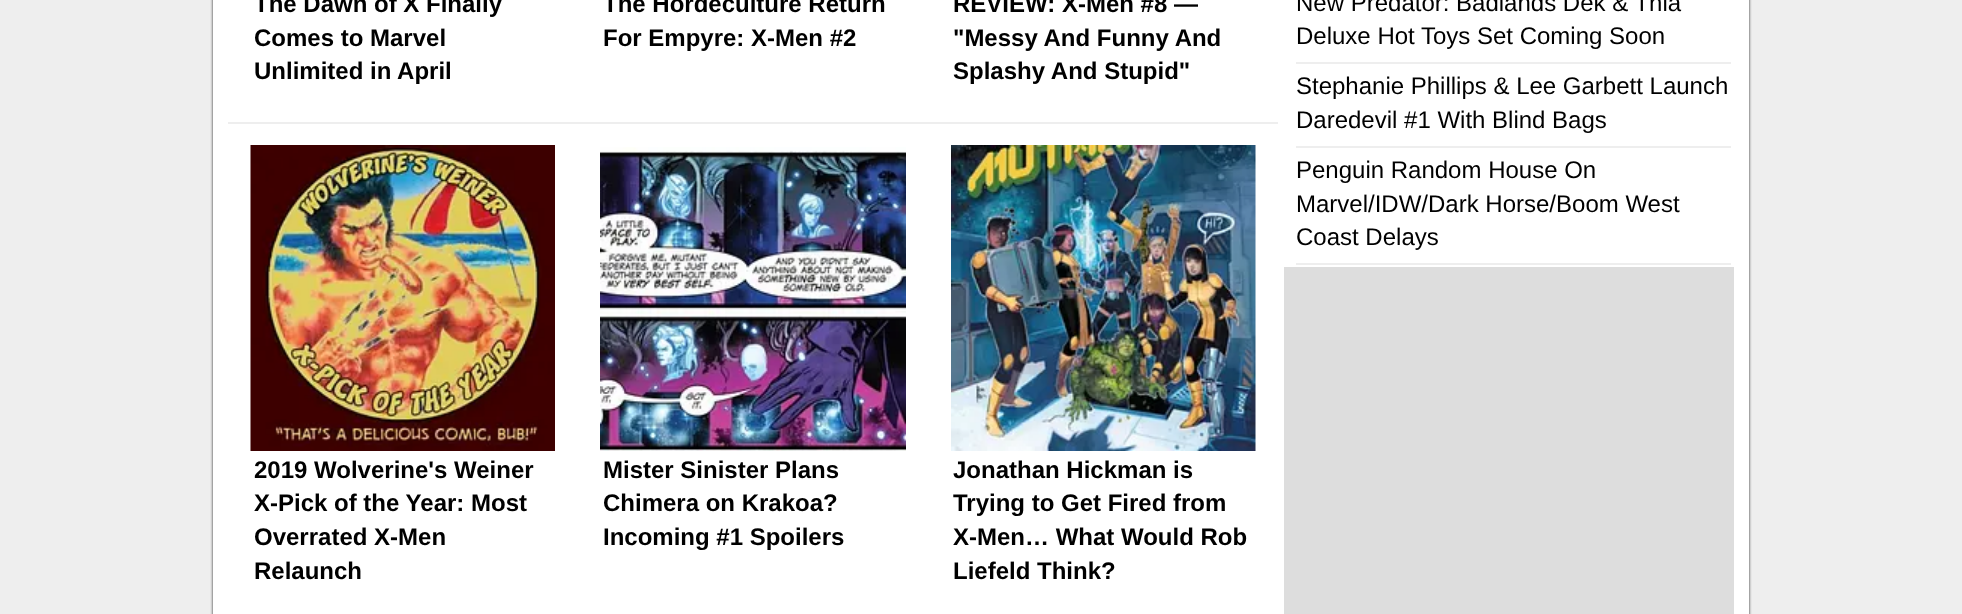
<svg xmlns="http://www.w3.org/2000/svg" width="1962" height="614" viewBox="0 0 1962 614">
  <style>
    .t1 { font: bold 24px Liberation Sans; fill: #000; }
    .t2 { font: 24px Liberation Sans; fill: #000; }
  </style>
  <rect width="100%" height="100%" fill="#eee"/>
  <rect x="213" y="-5" width="1536" height="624" fill="#222" filter="blur(1.5px)"/>
  <rect x="213" y="0" width="1536" height="614" fill="#fff"/>
  <text x="254" y="12" class="t1">The Dawn of X Finally</text>
  <text x="254" y="46" class="t1">Comes to Marvel</text>
  <text x="254" y="79" class="t1">Unlimited in April</text>
  <text x="603" y="12" class="t1">The Hordeculture Return</text>
  <text x="603" y="46" class="t1">For Empyre: X-Men #2</text>
  <text x="953" y="12" class="t1">REVIEW: X-Men #8 —</text>
  <text x="953" y="46" class="t1">"Messy And Funny And</text>
  <text x="953" y="79" class="t1">Splashy And Stupid"</text>
  <rect x="228" y="122" width="1050" height="2" fill="#eee"/>
  <image x="250" y="145" width="305" height="306" href="images/1.png"/>
  <text x="254" y="478" class="t1">2019 Wolverine's Weiner</text>
  <text x="254" y="511" class="t1">X-Pick of the Year: Most</text>
  <text x="254" y="545" class="t1">Overrated X-Men</text>
  <text x="254" y="579" class="t1">Relaunch</text>
  <image x="600" y="147" width="306" height="304" href="images/2.png"/>
  <text x="603" y="478" class="t1">Mister Sinister Plans</text>
  <text x="603" y="511" class="t1">Chimera on Krakoa?</text>
  <text x="603" y="545" class="t1">Incoming #1 Spoilers</text>
  <image x="951" y="145" width="305" height="306" href="images/3.png"/>
  <text x="953" y="478" class="t1">Jonathan Hickman is</text>
  <text x="953" y="511" class="t1">Trying to Get Fired from</text>
  <text x="953" y="545" class="t1">X-Men… What Would Rob</text>
  <text x="953" y="579" class="t1">Liefeld Think?</text>
  <rect x="1296" y="62" width="435" height="2" fill="#eee"/>
  <text x="1296" y="11" class="t2">New Predator: Badlands Dek &amp; Thia</text>
  <text x="1296" y="44" class="t2">Deluxe Hot Toys Set Coming Soon</text>
  <rect x="1296" y="146" width="435" height="2" fill="#eee"/>
  <text x="1296" y="94" class="t2">Stephanie Phillips &amp; Lee Garbett Launch</text>
  <text x="1296" y="128" class="t2">Daredevil #1 With Blind Bags</text>
  <rect x="1296" y="263" width="435" height="2" fill="#eee"/>
  <text x="1296" y="178" class="t2">Penguin Random House On</text>
  <text x="1296" y="212" class="t2">Marvel/IDW/Dark Horse/Boom West</text>
  <text x="1296" y="245" class="t2">Coast Delays</text>
  <rect x="1284" y="267" width="450" height="347" fill="#ddd"/>
</svg>
